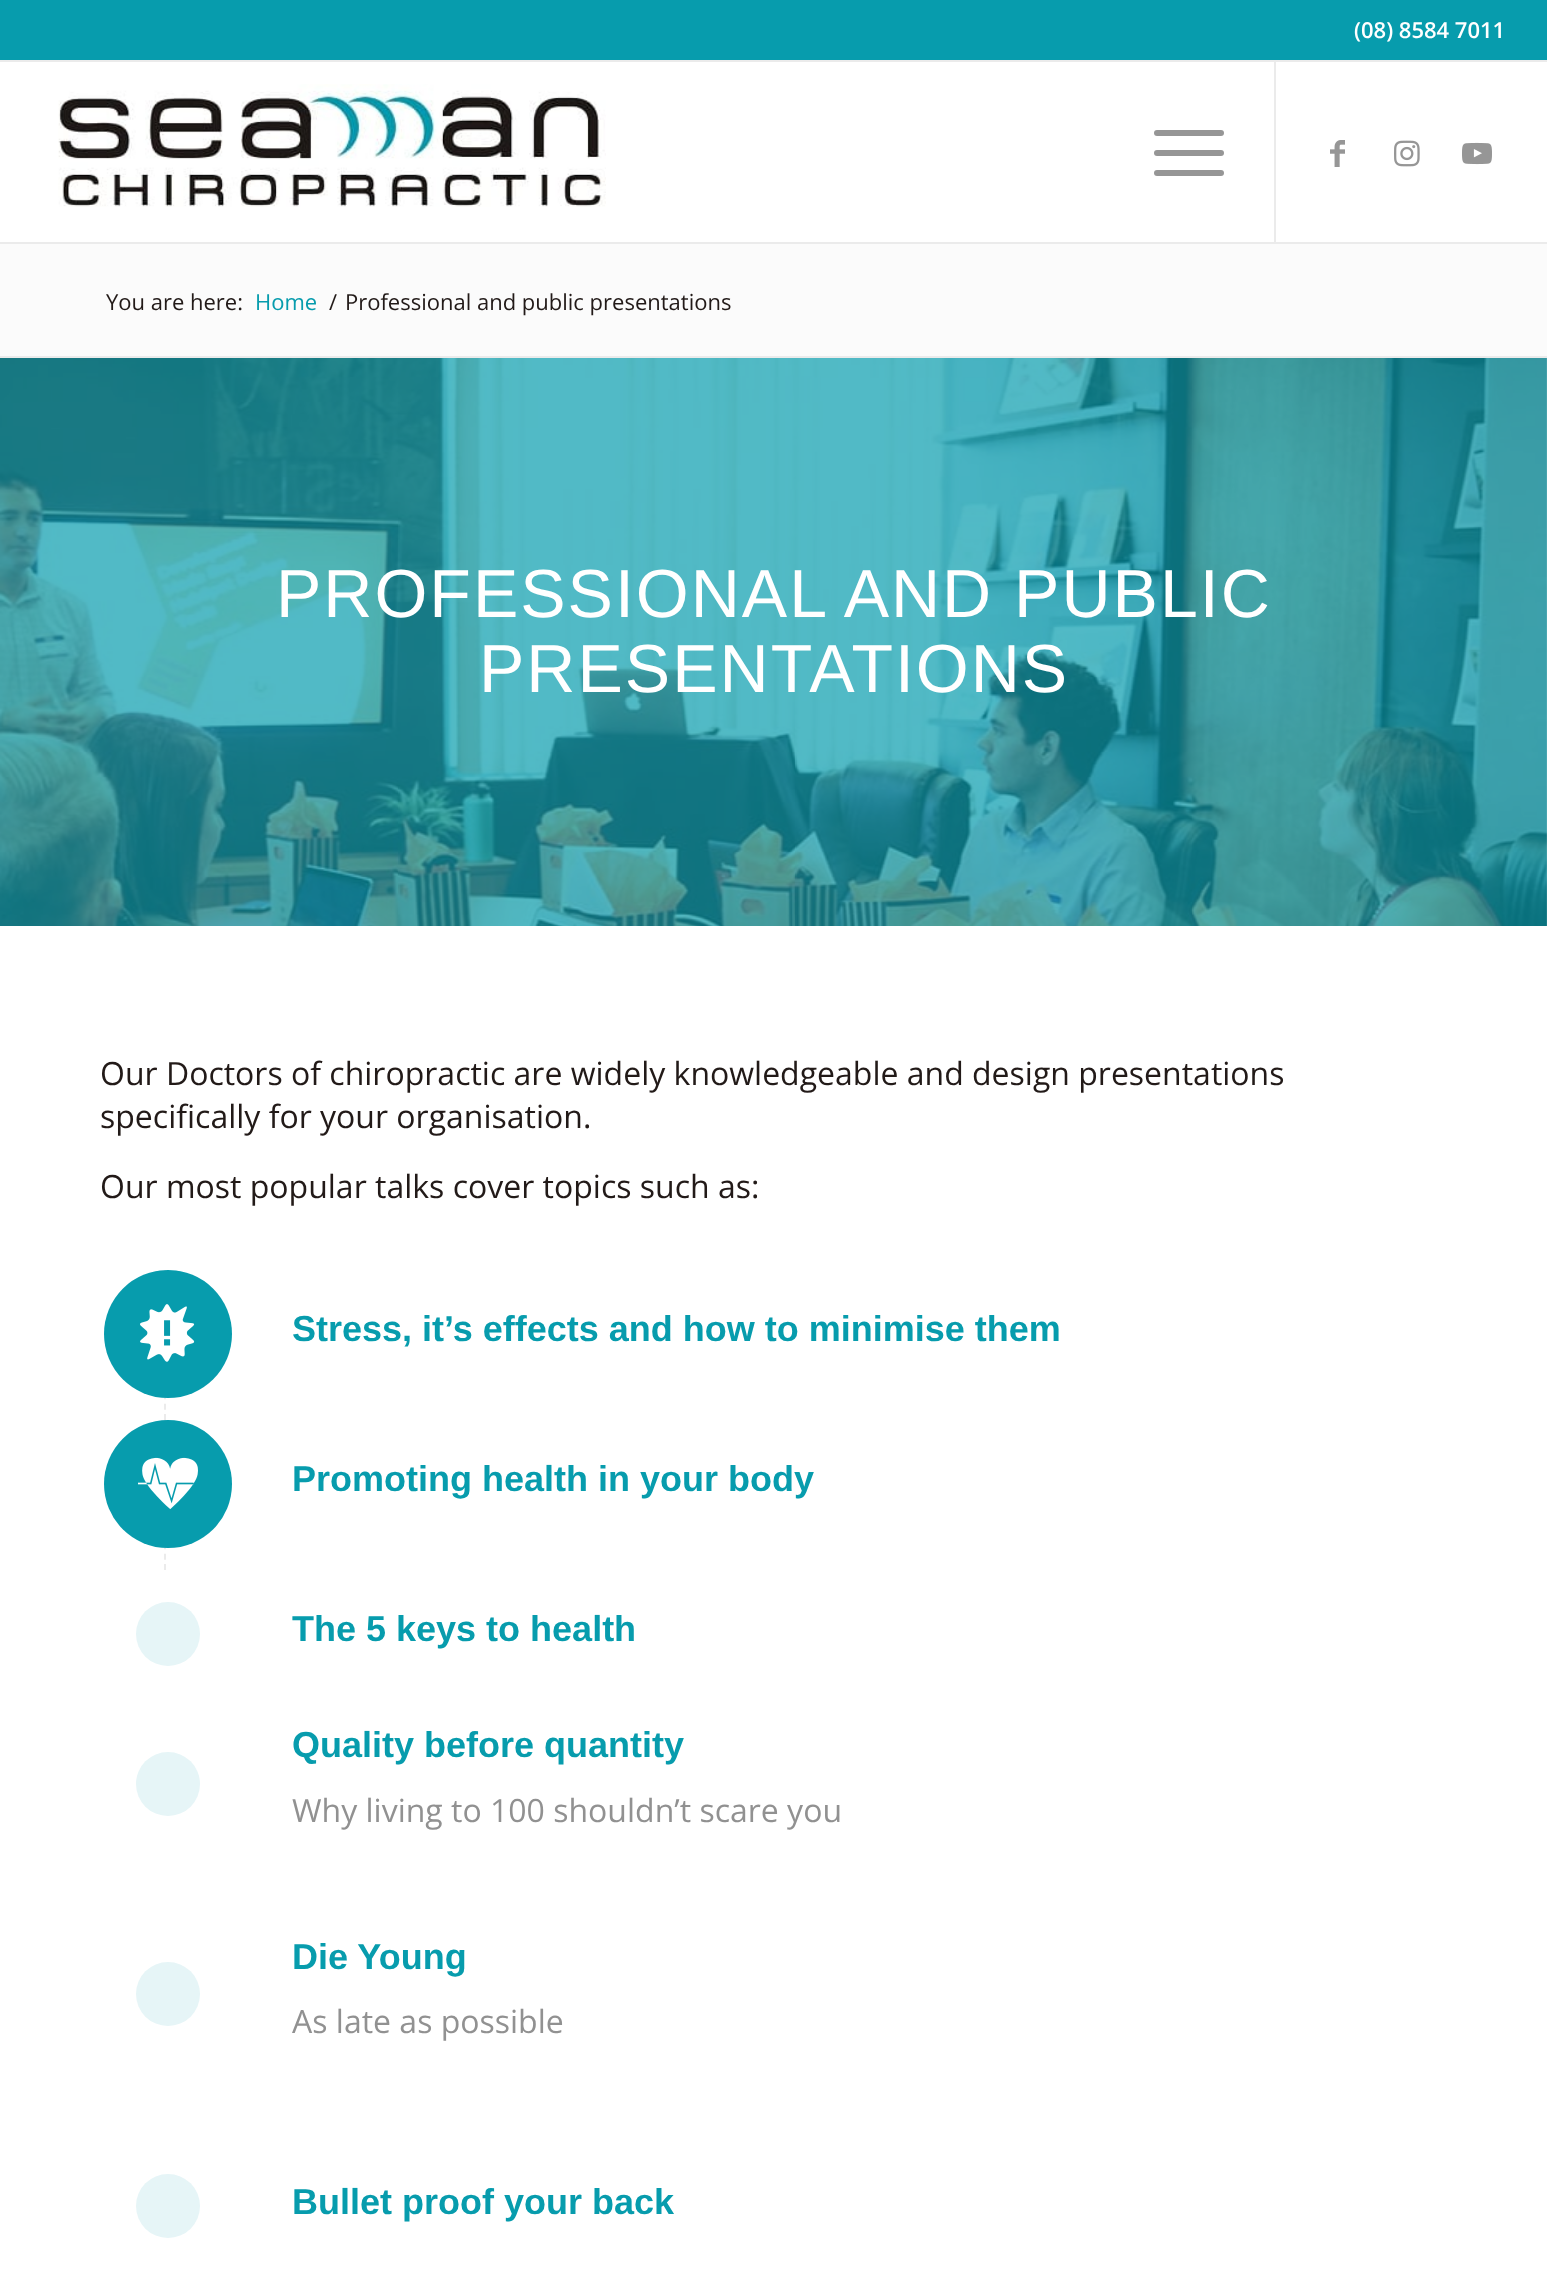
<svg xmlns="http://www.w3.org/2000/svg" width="1547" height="2272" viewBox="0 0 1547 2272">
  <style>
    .t1 { font: 600 22px Open Sans; fill: #fff; }
    .t2 { font: 22px Open Sans; fill: #221a18; }
    .t3 { font: 22px Open Sans; fill: #079cad; }
    .t4 { font: 68px Liberation Sans; letter-spacing: 2px; fill: #fff; }
    .t5 { font: 32px Open Sans; fill: #221a18; }
    .t6 { font: bold 36px Liberation Sans; fill: #079cad; }
    .t7 { font: 32px Open Sans; fill: #919191; }
  </style>
  <rect width="100%" height="100%" fill="#fff"/>
  <rect x="0" y="0" width="1547" height="60" fill="#079cad"/>
  <rect x="0" y="60" width="1547" height="2" fill="#ebebeb"/>
  <text x="1354" y="38" class="t1">(08) 8584 7011</text>
  <rect x="0" y="242" width="1547" height="2" fill="#ebebeb"/>
  <image x="58" y="84" width="548" height="123" href="images/1.png"/>
  <rect x="1274" y="62" width="2" height="180" fill="#ebebeb"/>
  <rect x="1154" y="150" width="70" height="6" rx="3" fill="#969696"/>
  <rect x="1154" y="130" width="70" height="6" rx="3" fill="#969696"/>
  <rect x="1154" y="170" width="70" height="6" rx="3" fill="#969696"/>
  <image x="1330" y="140" width="15" height="27" href="images/2.png"/>
  <image x="1394" y="140" width="26" height="27" href="images/3.png"/>
  <image x="1462" y="142" width="30" height="23" href="images/4.png"/>
  <rect x="0" y="244" width="1547" height="112" fill="#fbfbfb"/>
  <rect x="0" y="356" width="1547" height="2" fill="#ebebeb"/>
  <text x="106" y="310" class="t2">You are here:</text>
  <text x="255" y="310" class="t3">Home</text>
  <text x="329" y="310" class="t2">/</text>
  <text x="345" y="310" class="t2">Professional and public presentations</text>
  <image x="0" y="358" width="1547" height="568" href="images/5.png"/>
  <text x="276" y="617" class="t4">PROFESSIONAL AND PUBLIC</text>
  <text x="479" y="692" class="t4">PRESENTATIONS</text>
  <text x="100" y="1085" class="t5">Our Doctors of chiropractic are widely knowledgeable and design presentations</text>
  <text x="100" y="1128" class="t5">specifically for your organisation.</text>
  <text x="100" y="1198" class="t5">Our most popular talks cover topics such as:</text>
  <path d="M165 1270V1420" fill="none" stroke="#ebebeb" stroke-width="2" stroke-dasharray="6 4.28"/>
  <circle cx="168" cy="1334" r="64" fill="#079cad"/>
  <image x="140" y="1304" width="55" height="58" href="images/6.png"/>
  <text x="292" y="1341" class="t6">Stress, it’s effects and how to minimise them</text>
  <path d="M165 1420V1570" fill="none" stroke="#ebebeb" stroke-width="2" stroke-dasharray="6 4.28"/>
  <circle cx="168" cy="1484" r="64" fill="#079cad"/>
  <image x="138" y="1457" width="60" height="53" href="images/7.png"/>
  <text x="292" y="1491" class="t6">Promoting health in your body</text>
  <circle cx="168" cy="1634" r="32" fill="#e6f5f7"/>
  <text x="292" y="1641" class="t6">The 5 keys to health</text>
  <circle cx="168" cy="1784" r="32" fill="#e6f5f7"/>
  <text x="292" y="1757" class="t6">Quality before quantity</text>
  <text x="292" y="1822" class="t7">Why living to 100 shouldn’t scare you</text>
  <circle cx="168" cy="1994" r="32" fill="#e6f5f7"/>
  <text x="292" y="1969" class="t6">Die Young</text>
  <text x="292" y="2033" class="t7">As late as possible</text>
  <circle cx="168" cy="2206" r="32" fill="#e6f5f7"/>
  <text x="292" y="2214" class="t6">Bullet proof your back</text>
</svg>
